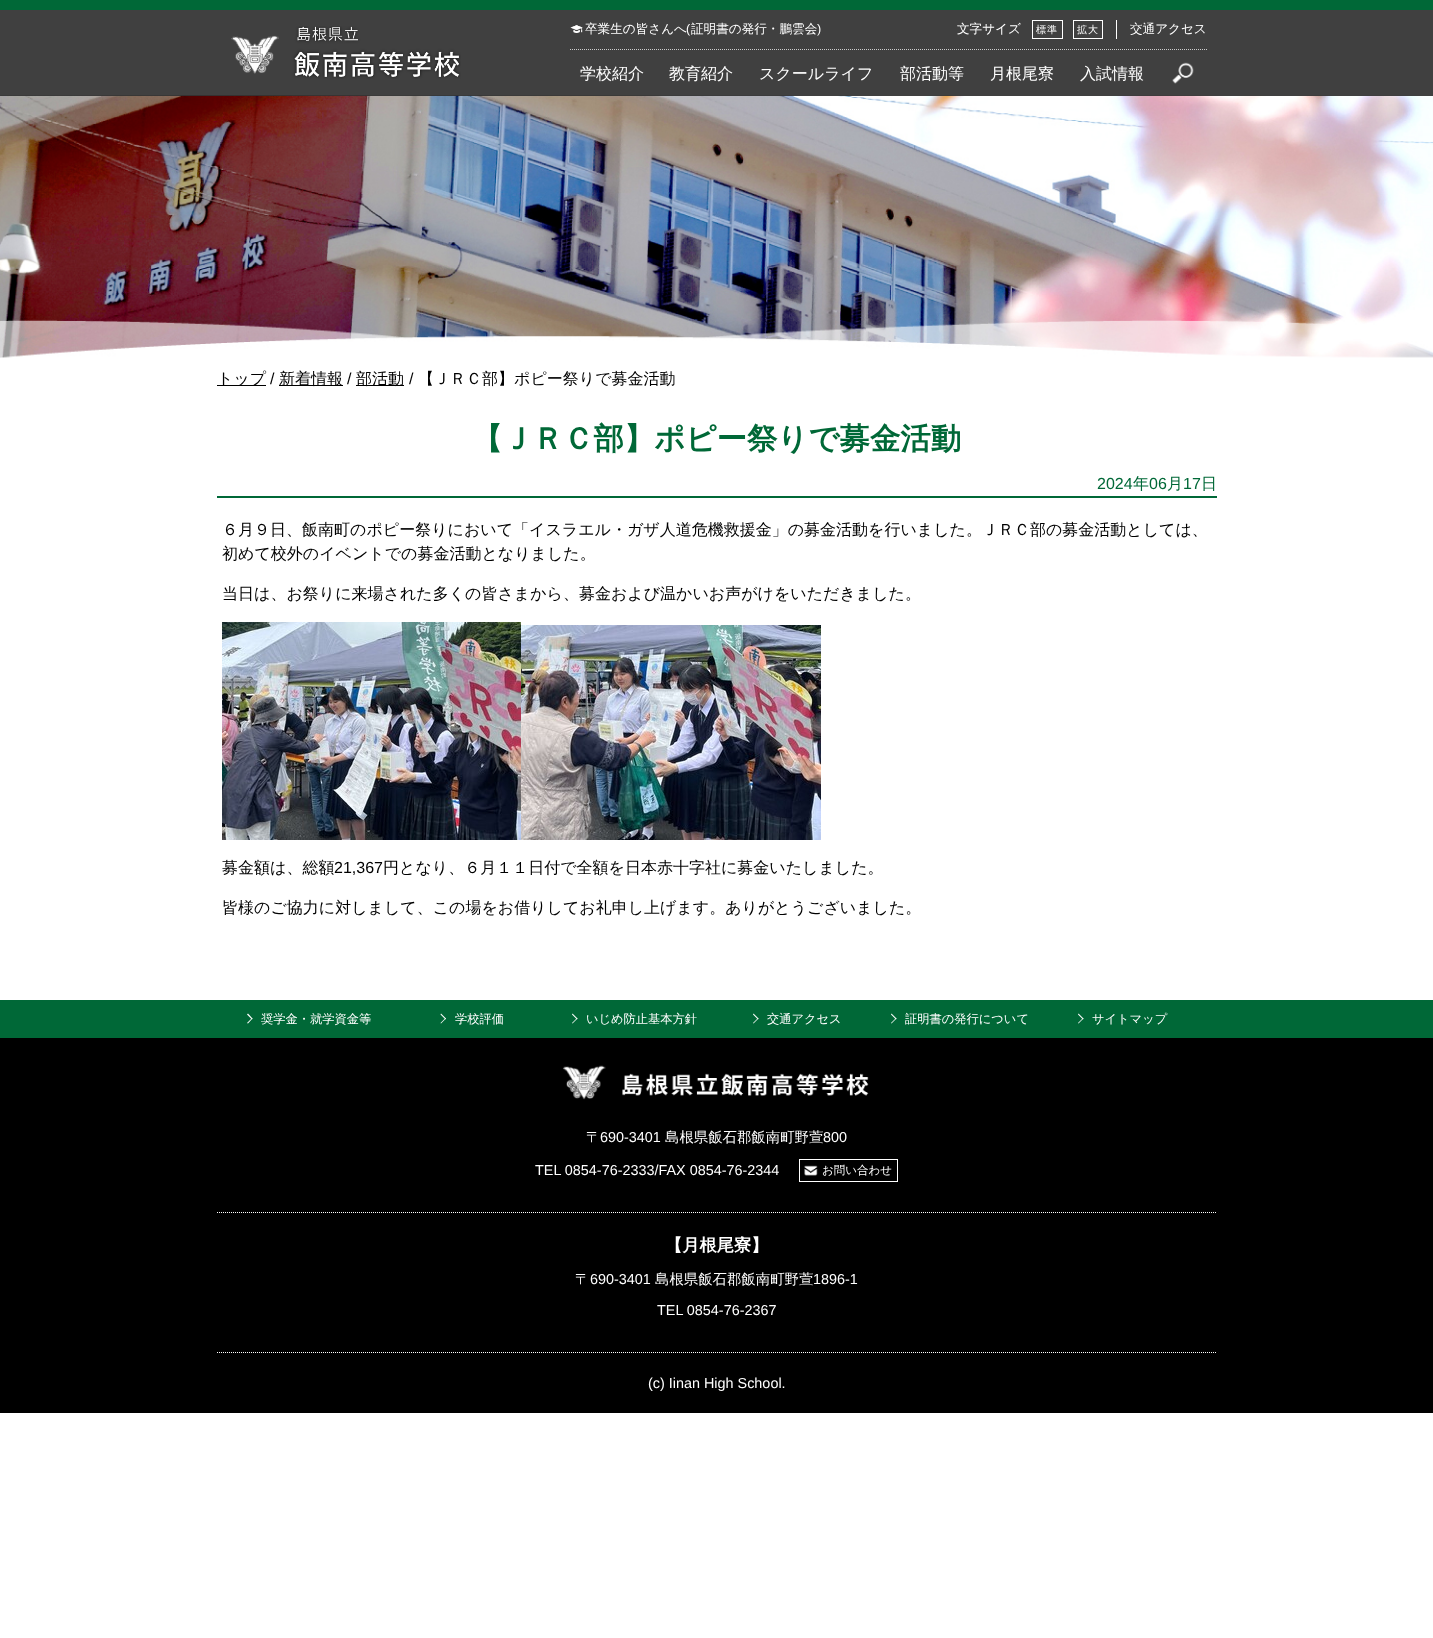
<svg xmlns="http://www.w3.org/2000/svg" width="1433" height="1638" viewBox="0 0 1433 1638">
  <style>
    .t1 { font: 500 12.6px WenQuanYi Zen Hei; fill: #fff; }
    .t2 { font: 12.6px Liberation Sans; fill: #fff; }
    .t3 { font: 500 10px WenQuanYi Zen Hei; letter-spacing: 1px; fill: #fff; }
    .t4 { font: 500 16px WenQuanYi Zen Hei; fill: #fff; }
    .t5 { font: 500 16px WenQuanYi Zen Hei; fill: #000; }
    .t6 { font: 16px Liberation Sans; fill: #000; }
    .t7 { font: bold 30.4px WenQuanYi Zen Hei; fill: #006837; }
    .t8 { font: 16px Liberation Sans; fill: #006837; }
    .t9 { font: 500 16px WenQuanYi Zen Hei; fill: #006837; }
    .t10 { font: 500 12.25px WenQuanYi Zen Hei; fill: #fff; }
    .t11 { font: 500 14.4px WenQuanYi Zen Hei; fill: #fff; }
    .t12 { font: 14.4px Liberation Sans; fill: #fff; }
    .t13 { font: 500 11.5px WenQuanYi Zen Hei; fill: #fff; }
    .t14 { font: bold 17.25px WenQuanYi Zen Hei; fill: #fff; }
  </style>
  <rect width="100%" height="100%" fill="#fff"/>
  <image x="0" y="95" width="1433" height="263" href="images/4.png"/>
  <rect x="0" y="10" width="1433" height="86" fill="#000000bf"/>
  <rect x="0" y="0" width="1433" height="10" fill="#006837"/>
  <image x="231" y="26" width="230" height="53" href="images/1.png"/>
  <path d="M570 49.5H1207" fill="none" stroke="#ccc" stroke-dasharray="1 1"/>
  <image x="570" y="25" width="13" height="8" href="images/2.png"/>
  <text x="585" y="33" class="t1">卒業生の皆さんへ</text>
  <text x="686" y="33" class="t2">(</text>
  <text x="691" y="33" class="t1">証明書の発行・鵬雲会</text>
  <text x="817" y="33" class="t2">)</text>
  <rect x="1116" y="20" width="1" height="19" fill="#fff"/>
  <text x="957" y="33" class="t1">文字サイズ</text>
  <rect x="1032.5" y="20.5" width="30" height="18" fill="none" stroke="#fff"/>
  <text x="1036" y="33" class="t3">標準</text>
  <rect x="1073.5" y="20.5" width="29" height="18" fill="none" stroke="#fff"/>
  <text x="1077" y="33" class="t3">拡大</text>
  <text x="1130" y="33" class="t1">交通アクセス</text>
  <text x="580" y="79" class="t4">学校紹介</text>
  <text x="669" y="79" class="t4">教育紹介</text>
  <text x="759" y="79" class="t4">スクールライフ</text>
  <text x="900" y="79" class="t4">部活動等</text>
  <text x="990" y="79" class="t4">月根尾寮</text>
  <text x="1080" y="79" class="t4">入試情報</text>
  <image x="1172" y="62" width="22" height="22" href="images/3.png"/>
  <rect x="217" y="385" width="49" height="1" fill="#000"/>
  <text x="217" y="384" class="t5">トップ</text>
  <text x="270" y="384" class="t6">/</text>
  <rect x="279" y="385" width="64" height="1" fill="#000"/>
  <text x="279" y="384" class="t5">新着情報</text>
  <text x="347" y="384" class="t6">/</text>
  <rect x="356" y="385" width="48" height="1" fill="#000"/>
  <text x="356" y="384" class="t5">部活動</text>
  <text x="409" y="384" class="t6">/</text>
  <text x="418" y="384" class="t5">【ＪＲＣ部】ポピー祭りで募金活動</text>
  <rect x="217" y="496" width="1000" height="2" fill="#006837"/>
  <text x="472" y="449" class="t7">【ＪＲＣ部】ポピー祭りで募金活動</text>
  <text x="1097" y="489" class="t8">2024</text>
  <text x="1133" y="489" class="t9">年</text>
  <text x="1149" y="489" class="t8">06</text>
  <text x="1167" y="489" class="t9">月</text>
  <text x="1183" y="489" class="t8">17</text>
  <text x="1201" y="489" class="t9">日</text>
  <text x="222" y="535" class="t5">６月９日、飯南町のポピー祭りにおいて「イスラエル・ガザ人道危機救援金」の募金活動を行いました。ＪＲＣ部の募金活動としては、</text>
  <text x="222" y="559" class="t5">初めて校外のイベントでの募金活動となりました。</text>
  <text x="222" y="599" class="t5">当日は、お祭りに来場された多くの皆さまから、募金および温かいお声がけをいただきました。</text>
  <image x="222" y="622" width="299" height="218" href="images/5.png"/>
  <image x="521" y="625" width="300" height="215" href="images/6.png"/>
  <text x="222" y="873" class="t5">募金額は、総額</text>
  <text x="334" y="873" class="t6">21,367</text>
  <text x="383" y="873" class="t5">円となり、６月１１日付で全額を日本赤十字社に募金いたしました。</text>
  <text x="222" y="913" class="t5">皆様のご協力に対しまして、この場をお借りしてお礼申し上げます。ありがとうございました。</text>
  <rect x="0" y="1038" width="1433" height="375" fill="#000"/>
  <rect x="0" y="1000" width="1433" height="38" fill="#006837"/>
  <path d="M248 1013.5L252.5 1018.5L252 1019.5L247 1014.5Z" fill="#fff"/>
  <path d="M252 1018L252.5 1018.5L248 1023.5L247 1023Z" fill="#fff"/>
  <text x="261" y="1023" class="t10">奨学金・就学資金等</text>
  <path d="M441 1013.5L446 1018.5L445.5 1019.5L440.5 1014.5Z" fill="#fff"/>
  <path d="M445.5 1018L446 1018.5L441 1023.5L440.5 1023Z" fill="#fff"/>
  <text x="455" y="1023" class="t10">学校評価</text>
  <path d="M572.5 1013.5L577.5 1018.5L577 1019.5L572 1014.5Z" fill="#fff"/>
  <path d="M577 1018L577.5 1018.5L572.5 1023.5L572 1023Z" fill="#fff"/>
  <text x="586" y="1023" class="t10">いじめ防止基本方針</text>
  <path d="M753.5 1013.5L758.5 1018.5L758 1019.5L753 1014.5Z" fill="#fff"/>
  <path d="M758 1018L758.5 1018.5L753.5 1023.5L753 1023Z" fill="#fff"/>
  <text x="767" y="1023" class="t10">交通アクセス</text>
  <path d="M891.5 1013.5L896.5 1018.5L896 1019.5L891 1014.5Z" fill="#fff"/>
  <path d="M896 1018L896.5 1018.5L891.5 1023.5L891 1023Z" fill="#fff"/>
  <text x="905" y="1023" class="t10">証明書の発行について</text>
  <path d="M1078.5 1013.5L1083.5 1018.5L1083 1019.5L1078 1014.5Z" fill="#fff"/>
  <path d="M1083 1018L1083.5 1018.5L1078.5 1023.5L1078 1023Z" fill="#fff"/>
  <text x="1092" y="1023" class="t10">サイトマップ</text>
  <image x="562" y="1065" width="307" height="35" href="images/7.png"/>
  <text x="586" y="1142" class="t11">〒</text>
  <text x="600" y="1142" class="t12">690-3401</text>
  <text x="665" y="1142" class="t11">島根県飯石郡飯南町野萱</text>
  <text x="823" y="1142" class="t12">800</text>
  <text x="535" y="1175" class="t12">TEL 0854-76-2333/FAX 0854-76-2344</text>
  <image x="804" y="1165" width="14" height="11" href="images/8.png"/>
  <rect x="799.5" y="1159.5" width="98" height="22" fill="none" stroke="#fff"/>
  <text x="822" y="1174" class="t13">お問い合わせ</text>
  <path d="M217 1212.5H1217" fill="none" stroke="#fff" stroke-dasharray="1 1"/>
  <path d="M217 1352.5H1217" fill="none" stroke="#fff" stroke-dasharray="1 1"/>
  <text x="665" y="1251" class="t14">【月根尾寮】</text>
  <text x="575" y="1284" class="t11">〒</text>
  <text x="590" y="1284" class="t12">690-3401</text>
  <text x="655" y="1284" class="t11">島根県飯石郡飯南町野萱</text>
  <text x="813" y="1284" class="t12">1896-1</text>
  <text x="657" y="1315" class="t12">TEL 0854-76-2367</text>
  <text x="648" y="1388" class="t12">(c) Iinan High School.</text>
</svg>
